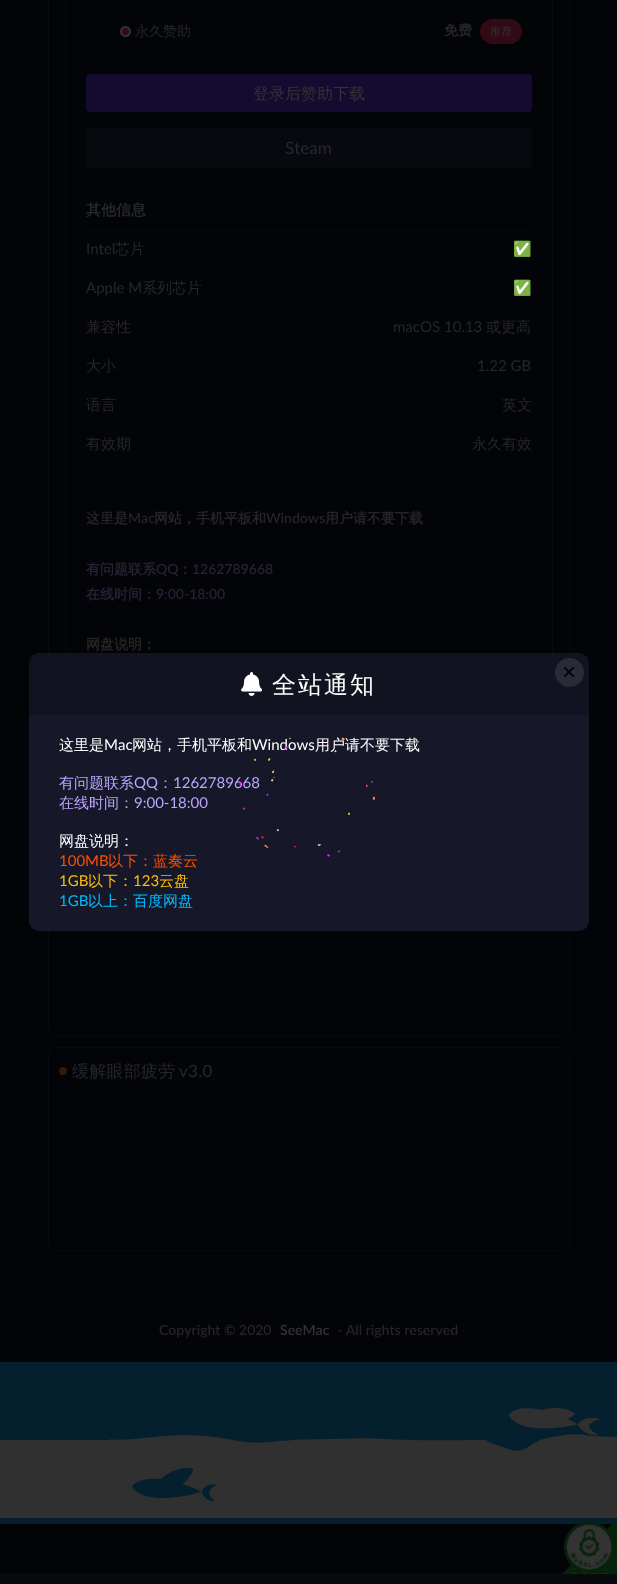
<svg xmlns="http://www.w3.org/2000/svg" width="617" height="1584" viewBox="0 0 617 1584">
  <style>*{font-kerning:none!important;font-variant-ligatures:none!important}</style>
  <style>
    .t1 { font: 500 14px WenQuanYi Zen Hei; fill: #26272c; }
    .t2 { font: bold 14px WenQuanYi Zen Hei; fill: #26272c; }
    .t3 { font: 500 11px WenQuanYi Zen Hei; fill: #333; }
    .t4 { font: 500 16px WenQuanYi Zen Hei; fill: #333; }
    .t5 { font: 17px Lato; fill: #26272c; }
    .t6 { font: bold 15px WenQuanYi Zen Hei; fill: #26272c; }
    .t7 { font: 15px Lato; fill: #26272c; }
    .t8 { font: 500 15px WenQuanYi Zen Hei; fill: #26272c; }
    .t9 { font: 15px Noto Color Emoji; fill: #26272c; }
    .t10 { font: bold 14px WenQuanYi Zen Hei; fill: #252526; }
    .t11 { font: 600 14px Lato; fill: #252526; }
    .t12 { font: bold 14px WenQuanYi Zen Hei; fill: #262133; }
    .t13 { font: 600 14px Lato; fill: #262133; }
    .t14 { font: 500 17px WenQuanYi Zen Hei; letter-spacing: 0.25px; fill: #26272c; }
    .t15 { font: 17px Lato; letter-spacing: 0.25px; fill: #26272c; }
    .t16 { font: 600 14px Lato; fill: #333; }
    .t17 { font: 500 24px WenQuanYi Zen Hei; letter-spacing: 2px; fill: #fff; }
    .t18 { font: 500 15px WenQuanYi Zen Hei; fill: #fff; }
    .t19 { font: 15px Lato; fill: #fff; }
    .t20 { font: 500 15px WenQuanYi Zen Hei; fill: #bda6ff; }
    .t21 { font: 15px Lato; fill: #bda6ff; }
    .t22 { font: 15px Lato; fill: #ff4f00; }
    .t23 { font: 500 15px WenQuanYi Zen Hei; fill: #ff4f00; }
    .t24 { font: 15px Lato; fill: #ffbf00; }
    .t25 { font: 500 15px WenQuanYi Zen Hei; fill: #ffbf00; }
    .t26 { font: 15px Lato; fill: #00bcff; }
    .t27 { font: 500 15px WenQuanYi Zen Hei; fill: #00bcff; }
    .t28 { font: 24px Liberation Sans; fill: #000; }
  </style>
  <rect width="100%" height="100%" fill="#030407"/>
  <rect x="48.5" y="-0.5" width="521" height="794" fill="none" stroke="#080a0d"/>
  <rect x="65.5" y="-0.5" width="487" height="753" fill="none" stroke="#080a0d"/>
  <circle cx="125.5" cy="31.5" r="4.5" fill="#320a16" stroke="#333" stroke-width="2"/>
  <text x="135" y="36" class="t1">永久赞助</text>
  <text x="444" y="35" class="t2">免费</text>
  <rect x="480" y="19" width="42" height="25" rx="12.5" fill="#320a16"/>
  <text x="490" y="35" class="t3">推荐</text>
  <rect x="86.5" y="74.5" width="445" height="37" rx="3.5" fill="#150b31" stroke="#150b31"/>
  <text x="253" y="99" class="t4">登录后赞助下载</text>
  <rect x="86" y="128" width="446" height="40" rx="4" fill="#08090e"/>
  <text x="285" y="154" class="t5">Steam</text>
  <rect x="86" y="230" width="446" height="1" fill="#08090e"/>
  <text x="86" y="215" class="t6">其他信息</text>
  <text x="86" y="254" class="t7">Intel</text>
  <text x="115" y="254" class="t8">芯片</text>
  <text x="513" y="254" class="t9">✅</text>
  <text x="86" y="293" class="t7">Apple M</text>
  <text x="142" y="293" class="t8">系列芯片</text>
  <text x="513" y="293" class="t9">✅</text>
  <text x="86" y="332" class="t8">兼容性</text>
  <text x="393" y="332" class="t7">macOS 10.13</text>
  <text x="486" y="332" class="t8">或更高</text>
  <text x="86" y="371" class="t8">大小</text>
  <text x="477" y="371" class="t7">1.22 GB</text>
  <text x="86" y="410" class="t8">语言</text>
  <text x="502" y="410" class="t8">英文</text>
  <text x="86" y="449" class="t8">有效期</text>
  <text x="472" y="449" class="t8">永久有效</text>
  <text x="86" y="523" class="t10">这里是</text>
  <text x="128" y="523" class="t11">Mac</text>
  <text x="154" y="523" class="t10">网站，手机平板和</text>
  <text x="266" y="523" class="t11">Windows</text>
  <text x="325" y="523" class="t10">用户请不要下载</text>
  <text x="86" y="574" class="t12">有问题联系</text>
  <text x="156" y="574" class="t13">QQ</text>
  <text x="178" y="574" class="t12">：</text>
  <text x="192" y="574" class="t13">1262789668</text>
  <text x="86" y="599" class="t12">在线时间：</text>
  <text x="156" y="599" class="t13">9:00-18:00</text>
  <text x="86" y="649" class="t10">网盘说明：</text>
  <rect x="48.5" y="834.5" width="521" height="202" rx="7.5" fill="none" stroke="#080a0d"/>
  <rect x="48.5" y="1047.5" width="521" height="203" rx="7.5" fill="none" stroke="#080a0d"/>
  <circle cx="63" cy="1071" r="4" fill="#331906"/>
  <text x="72" y="1077" class="t14">缓解眼部疲劳</text>
  <text x="179" y="1077" class="t15">v3.0</text>
  <text x="159" y="1335" class="t11">Copyright © 2020</text>
  <text x="280" y="1335" class="t16">SeeMac</text>
  <text x="337" y="1335" class="t11">- All rights reserved</text>
  <rect x="29" y="653" width="560" height="278" rx="10" fill="#161829"/>
  <path d="M39 653H579C584.5 653 589 657.5 589 663V715H29V663C29 657.5 33.5 653 39 653Z" fill="#00000033"/>
  <image x="241" y="672" width="21" height="24" href="images/1.png"/>
  <text x="272" y="693" class="t17">全站通知</text>
  <text x="59" y="750" class="t18">这里是</text>
  <text x="104" y="750" class="t19">Mac</text>
  <text x="132" y="750" class="t18">网站，手机平板和</text>
  <text x="252" y="750" class="t19">Windows</text>
  <text x="315" y="750" class="t18">用户请不要下载</text>
  <text x="59" y="788" class="t20">有问题联系</text>
  <text x="134" y="788" class="t21">QQ</text>
  <text x="158" y="788" class="t20">：</text>
  <text x="173" y="788" class="t21">1262789668</text>
  <text x="59" y="808" class="t20">在线时间：</text>
  <text x="134" y="808" class="t21">9:00-18:00</text>
  <text x="59" y="846" class="t18">网盘说明：</text>
  <text x="59" y="866" class="t22">100MB</text>
  <text x="108" y="866" class="t23">以下：蓝奏云</text>
  <text x="59" y="886" class="t24">1GB</text>
  <text x="88" y="886" class="t25">以下：</text>
  <text x="133" y="886" class="t24">123</text>
  <text x="159" y="886" class="t25">云盘</text>
  <text x="59" y="906" class="t26">1GB</text>
  <text x="88" y="906" class="t27">以上：百度网盘</text>
  <circle cx="569.5" cy="672.5" r="14.5" fill="#292b37"/>
  <text x="562" y="680" class="t28">×</text>
  <image x="239" y="737" width="136" height="120" href="images/2.png"/>
  <rect x="0" y="1362" width="617" height="162" fill="#04202e"/>
  <image x="0" y="1408" width="617" height="110" href="images/3.png"/>
  <image x="561" y="1519" width="56" height="55" href="images/4.png"/>
  <rect x="0" y="1574" width="617" height="10" fill="#080a0d"/>
</svg>
